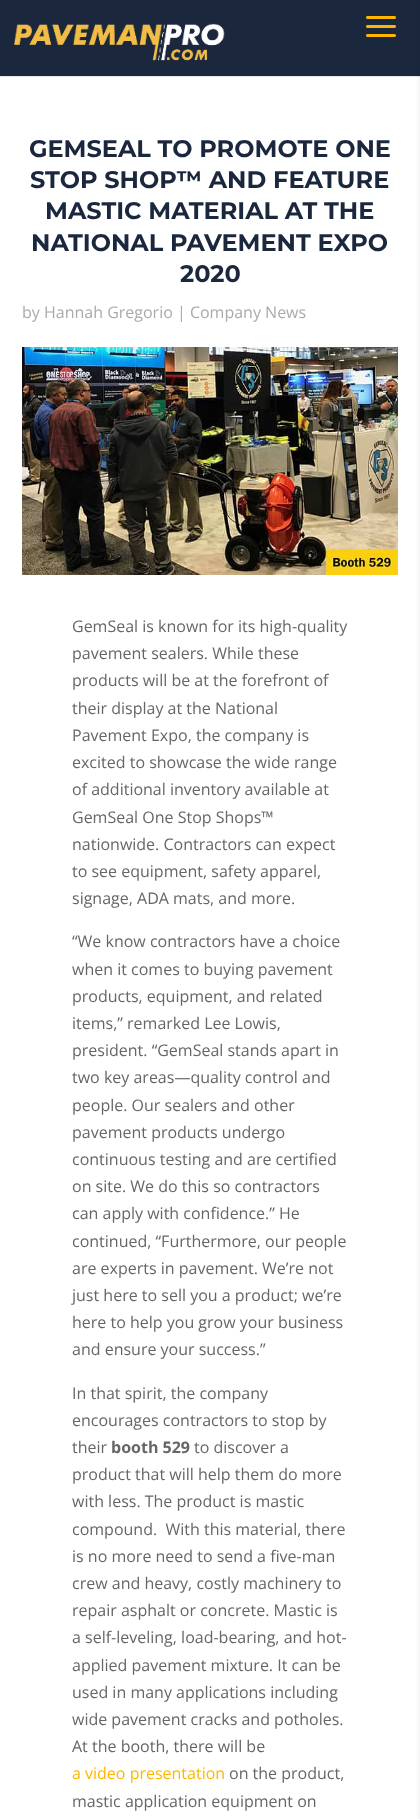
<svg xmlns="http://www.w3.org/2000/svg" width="420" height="1819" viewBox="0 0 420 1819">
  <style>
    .t1 { font: bold 24px Montserrat; fill: #1b273d; }
    .t2 { font: 16px Open Sans; fill: #aaa; }
    .t3 { font: 16px Open Sans; fill: #666; }
    .t4 { font: bold 16px Open Sans; fill: #666; }
    .t5 { font: 16px Open Sans; fill: #ffb600; }
  </style>
  <rect width="100%" height="100%" fill="#fff"/>
  <rect x="0" y="76" width="420" height="1" fill="#e6e6e6"/>
  <rect x="0" y="0" width="420" height="76" fill="#1b273d"/>
  <image x="14" y="23" width="211" height="38" href="images/1.png"/>
  <image x="366" y="16" width="30" height="21" href="images/2.png"/>
  <rect x="420" y="2" width="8" height="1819" fill="#0000001a" filter="blur(2.5px)"/>
  <text x="29" y="157" class="t1">GEMSEAL TO PROMOTE ONE</text>
  <text x="30" y="188" class="t1">STOP SHOP™ AND FEATURE</text>
  <text x="45" y="219" class="t1">MASTIC MATERIAL AT THE</text>
  <text x="31" y="251" class="t1">NATIONAL PAVEMENT EXPO</text>
  <text x="180" y="282" class="t1">2020</text>
  <text x="22" y="318" class="t2">by Hannah Gregorio | Company News</text>
  <image x="22" y="347" width="376" height="228" href="images/3.png"/>
  <text x="72" y="632" class="t3">GemSeal is known for its high-quality</text>
  <text x="72" y="659" class="t3">pavement sealers. While these</text>
  <text x="72" y="686" class="t3">products will be at the forefront of</text>
  <text x="72" y="714" class="t3">their display at the National</text>
  <text x="72" y="741" class="t3">Pavement Expo, the company is</text>
  <text x="72" y="768" class="t3">excited to showcase the wide range</text>
  <text x="72" y="795" class="t3">of additional inventory available at</text>
  <text x="72" y="823" class="t3">GemSeal One Stop Shops™</text>
  <text x="72" y="850" class="t3">nationwide. Contractors can expect</text>
  <text x="72" y="877" class="t3">to see equipment, safety apparel,</text>
  <text x="72" y="904" class="t3">signage, ADA mats, and more.</text>
  <text x="72" y="947" class="t3">“We know contractors have a choice</text>
  <text x="72" y="975" class="t3">when it comes to buying pavement</text>
  <text x="72" y="1002" class="t3">products, equipment, and related</text>
  <text x="72" y="1029" class="t3">items,” remarked Lee Lowis,</text>
  <text x="72" y="1056" class="t3">president. “GemSeal stands apart in</text>
  <text x="72" y="1083" class="t3">two key areas—quality control and</text>
  <text x="72" y="1111" class="t3">people. Our sealers and other</text>
  <text x="72" y="1138" class="t3">pavement products undergo</text>
  <text x="72" y="1165" class="t3">continuous testing and are certified</text>
  <text x="72" y="1192" class="t3">on site. We do this so contractors</text>
  <text x="72" y="1219" class="t3">can apply with confidence.” He</text>
  <text x="72" y="1247" class="t3">continued, “Furthermore, our people</text>
  <text x="72" y="1274" class="t3">are experts in pavement. We’re not</text>
  <text x="72" y="1301" class="t3">just here to sell you a product; we’re</text>
  <text x="72" y="1328" class="t3">here to help you grow your business</text>
  <text x="72" y="1355" class="t3">and ensure your success.”</text>
  <text x="72" y="1399" class="t3">In that spirit, the company</text>
  <text x="72" y="1426" class="t3">encourages contractors to stop by</text>
  <text x="72" y="1453" class="t3">their</text>
  <text x="111" y="1453" class="t4">booth 529</text>
  <text x="194" y="1453" class="t3">to discover a</text>
  <text x="72" y="1480" class="t3">product that will help them do more</text>
  <text x="72" y="1507" class="t3">with less. The product is mastic</text>
  <text x="72" y="1535" class="t3" xml:space="preserve">compound.  With this material, there</text>
  <text x="72" y="1562" class="t3">is no more need to send a five-man</text>
  <text x="72" y="1589" class="t3">crew and heavy, costly machinery to</text>
  <text x="72" y="1616" class="t3">repair asphalt or concrete. Mastic is</text>
  <text x="72" y="1643" class="t3">a self-leveling, load-bearing, and hot-</text>
  <text x="72" y="1671" class="t3">applied pavement mixture. It can be</text>
  <text x="72" y="1698" class="t3">used in many applications including</text>
  <text x="72" y="1725" class="t3">wide pavement cracks and potholes.</text>
  <text x="72" y="1752" class="t3">At the booth, there will be</text>
  <text x="72" y="1779" class="t5">a video presentation</text>
  <text x="229" y="1779" class="t3">on the product,</text>
  <text x="72" y="1807" class="t3">mastic application equipment on</text>
</svg>
